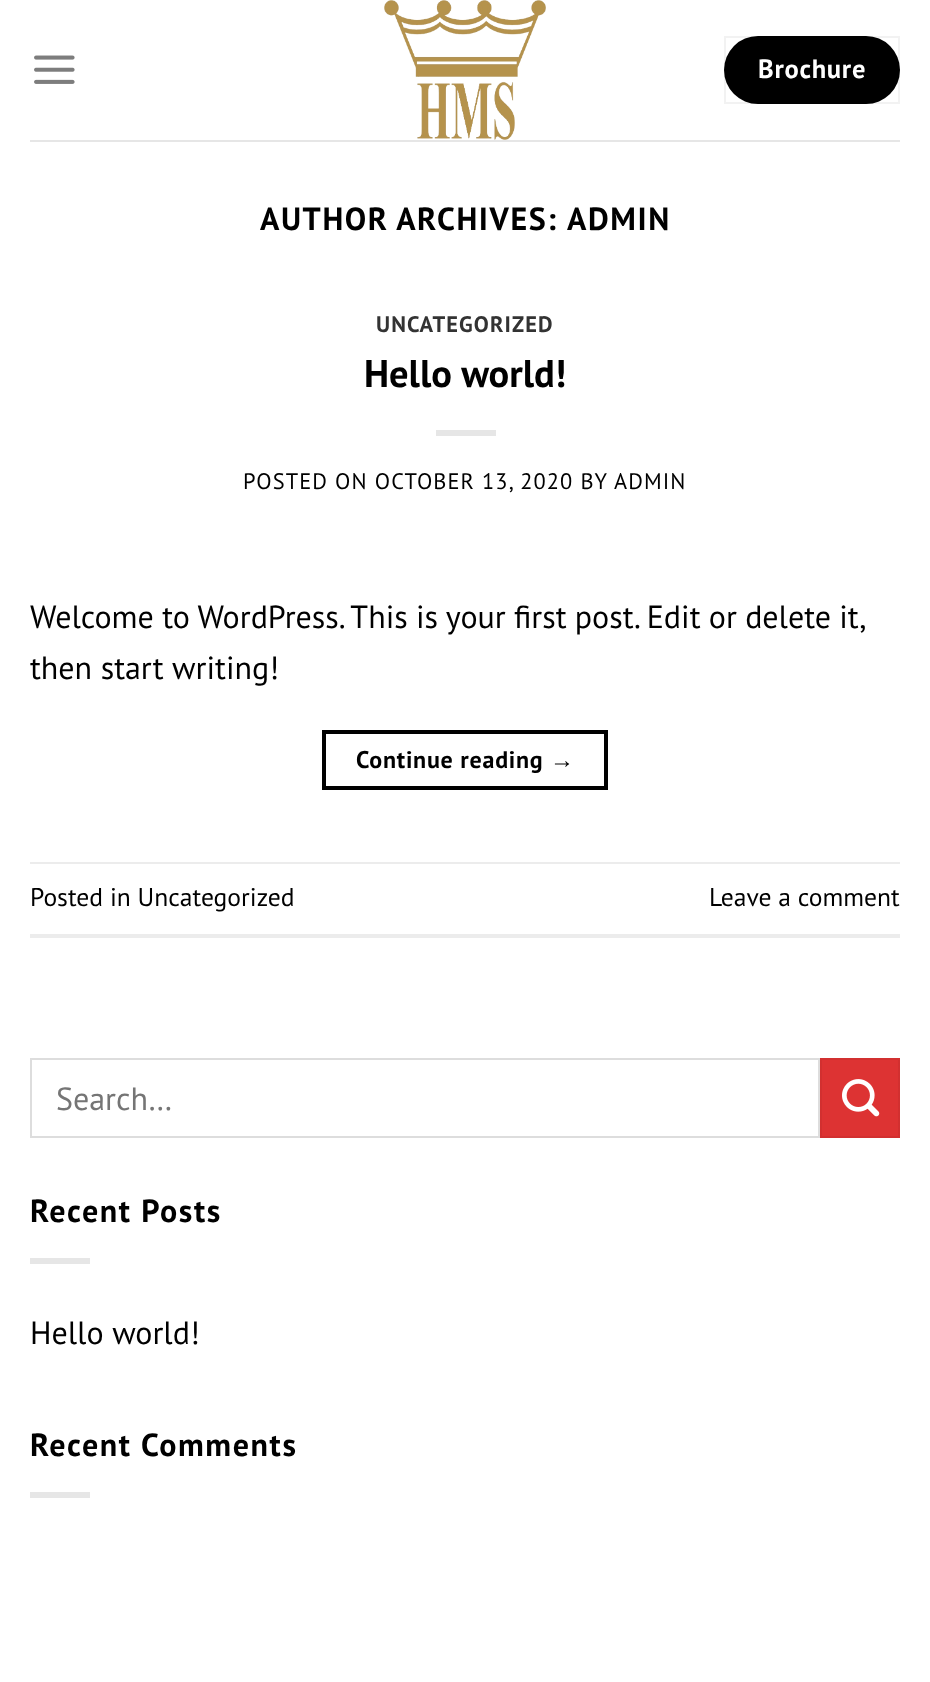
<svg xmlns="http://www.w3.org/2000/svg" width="930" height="1682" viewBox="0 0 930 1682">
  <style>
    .t1 { font: bold 26.5px PT Sans; letter-spacing: 0.75px; fill: #fff; }
    .t2 { font: bold 32px PT Sans; letter-spacing: 1.6px; fill: #000; }
    .t3 { font: bold 22.4px PT Sans; letter-spacing: 1.1px; fill: #333; }
    .t4 { font: bold 38.5px PT Sans; fill: #000; }
    .t5 { font: 22.4px PT Sans; letter-spacing: 1.1px; fill: #000; }
    .t6 { font: 32px PT Sans; fill: #000; }
    .t7 { font: bold 24px PT Sans; letter-spacing: 0.75px; fill: #000; }
    .t8 { font: bold 24px Liberation Sans; letter-spacing: 0.75px; fill: #000; }
    .t9 { font: 25.6px PT Sans; fill: #000; }
    .t10 { font: 32px PT Sans; fill: #757575; }
  </style>
  <rect width="100%" height="100%" fill="#fff"/>
  <image x="34" y="55" width="41" height="29" href="images/1.png"/>
  <image x="384" y="0" width="162" height="140" href="images/2.png"/>
  <rect x="724" y="36" width="176" height="68" rx="34" fill="#000"/>
  <rect x="725" y="37" width="174" height="66" fill="none" stroke="#0000000d" stroke-width="2"/>
  <text x="758" y="78" class="t1">Brochure</text>
  <rect x="30" y="140" width="870" height="2" fill="#e6e6e6"/>
  <text x="260" y="230" word-spacing="-1" class="t2">AUTHOR ARCHIVES:</text>
  <text x="567" y="230" class="t2">ADMIN</text>
  <text x="376" y="332" class="t3">UNCATEGORIZED</text>
  <text x="364" y="387" class="t4">Hello world!</text>
  <rect x="436" y="430" width="60" height="6" fill="#e6e6e6"/>
  <text x="243" y="489" class="t5">POSTED ON OCTOBER 13, 2020 BY</text>
  <text x="614" y="489" class="t5">ADMIN</text>
  <text x="30" y="628" word-spacing="-0.25" class="t6">Welcome to WordPress. This is your first post. Edit or delete it,</text>
  <text x="30" y="679" class="t6">then start writing!</text>
  <rect x="324" y="732" width="282" height="56" fill="none" stroke="#000" stroke-width="4"/>
  <text x="356" y="768" class="t7">Continue reading</text>
  <text x="550" y="768" class="t8">→</text>
  <rect x="30" y="862" width="870" height="2" fill="#ececec"/>
  <rect x="30" y="934" width="870" height="4" fill="#ececec"/>
  <text x="30" y="906" class="t9">Posted in Uncategorized</text>
  <text x="709" y="906" class="t9">Leave a comment</text>
  <rect x="31" y="1059" width="788" height="78" fill="none" stroke="#ddd" stroke-width="2"/>
  <text x="56" y="1110" class="t10">Search…</text>
  <rect x="821" y="1059" width="78" height="78" fill="#d33" stroke="#d23030" stroke-width="2"/>
  <image x="842" y="1079" width="38" height="38" href="images/3.png"/>
  <text x="30" y="1222" class="t2">Recent Posts</text>
  <rect x="30" y="1258" width="60" height="6" fill="#e6e6e6"/>
  <text x="30" y="1344" class="t6">Hello world!</text>
  <text x="30" y="1456" class="t2">Recent Comments</text>
  <rect x="30" y="1492" width="60" height="6" fill="#e6e6e6"/>
</svg>
